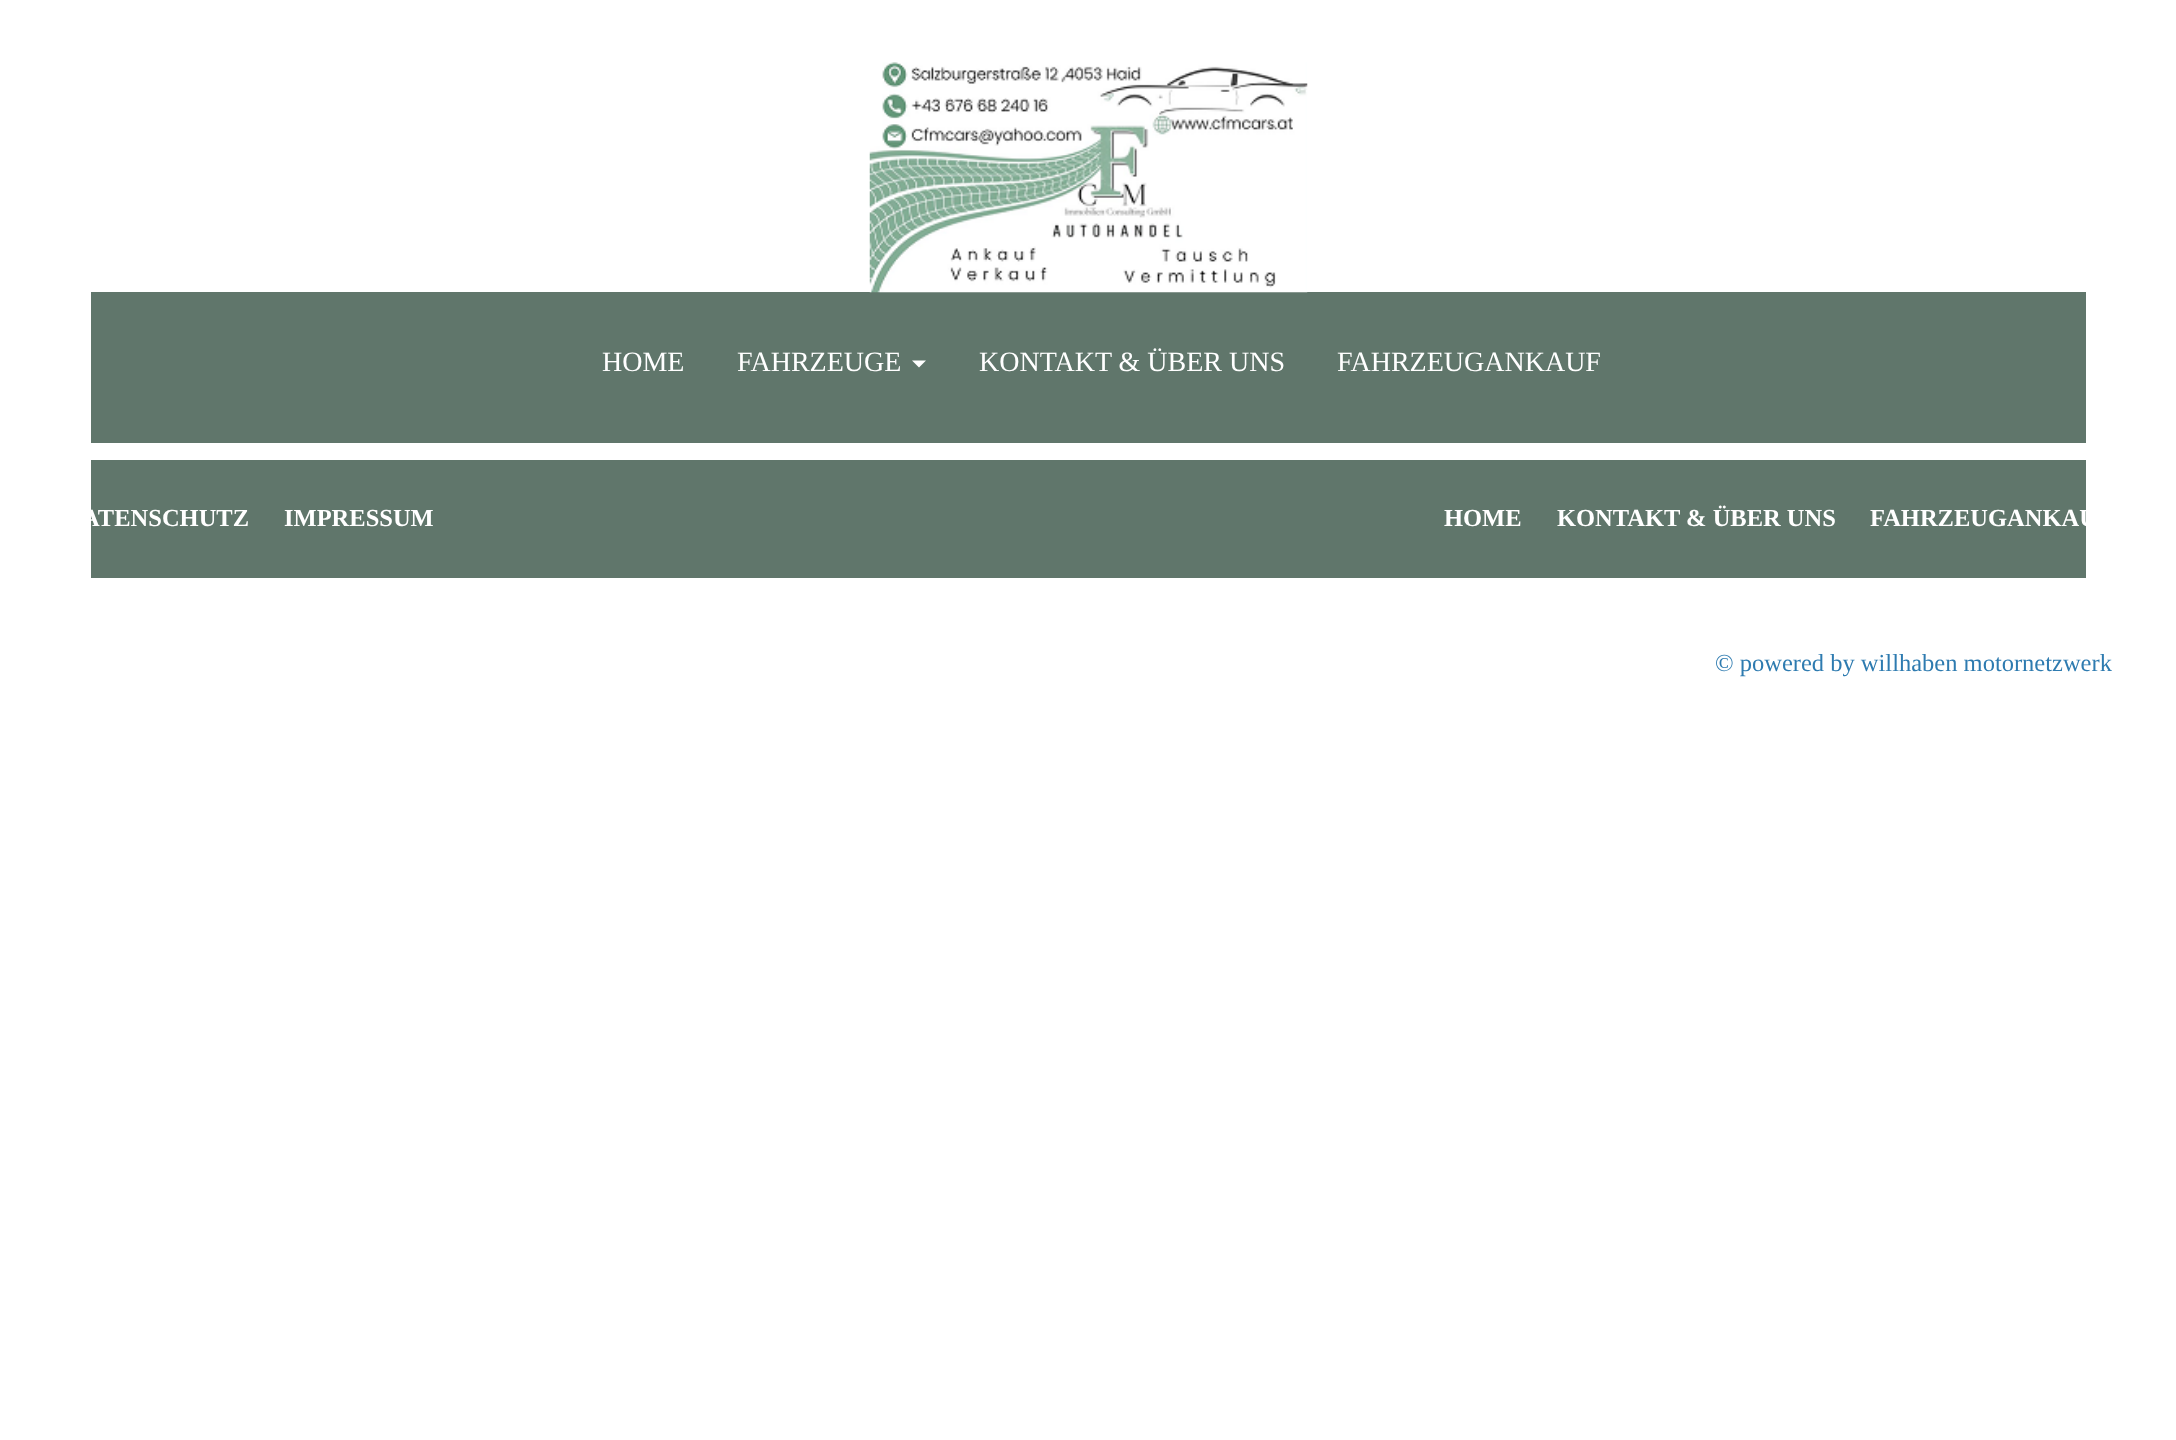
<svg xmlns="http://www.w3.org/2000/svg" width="2176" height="1440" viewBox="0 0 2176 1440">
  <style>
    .t1 { font: 28px Liberation Serif; fill: #fff; }
    .t2 { font: bold 24.5px Liberation Serif; fill: #fff; }
    .t3 { font: 24.5px Liberation Serif; fill: #2e7bb0; }
  </style>
  <rect width="100%" height="100%" fill="#fff"/>
  <rect x="91" y="292" width="1995" height="151" fill="#60766b"/>
  <image x="869" y="62" width="439" height="231" href="images/1.png"/>
  <text x="602" y="371" class="t1">HOME</text>
  <text x="737" y="371" class="t1">FAHRZEUGE</text>
  <path d="M912 360.5H926L919 367.5Z" fill="#fff"/>
  <text x="979" y="371" class="t1">KONTAKT &amp; ÜBER UNS</text>
  <text x="1337" y="371" class="t1">FAHRZEUGANKAUF</text>
  <rect x="91" y="460" width="1995" height="118" fill="#60766b"/>
  <text x="82" y="526" class="t2">ATENSCHUTZ</text>
  <text x="284" y="526" class="t2">IMPRESSUM</text>
  <text x="1444" y="526" class="t2">HOME</text>
  <text x="1557" y="526" class="t2">KONTAKT &amp; ÜBER UNS</text>
  <text x="1870" y="526" class="t2">FAHRZEUGANKAU</text>
  <text x="1715" y="671" class="t3">© powered by willhaben motornetzwerk</text>
</svg>
